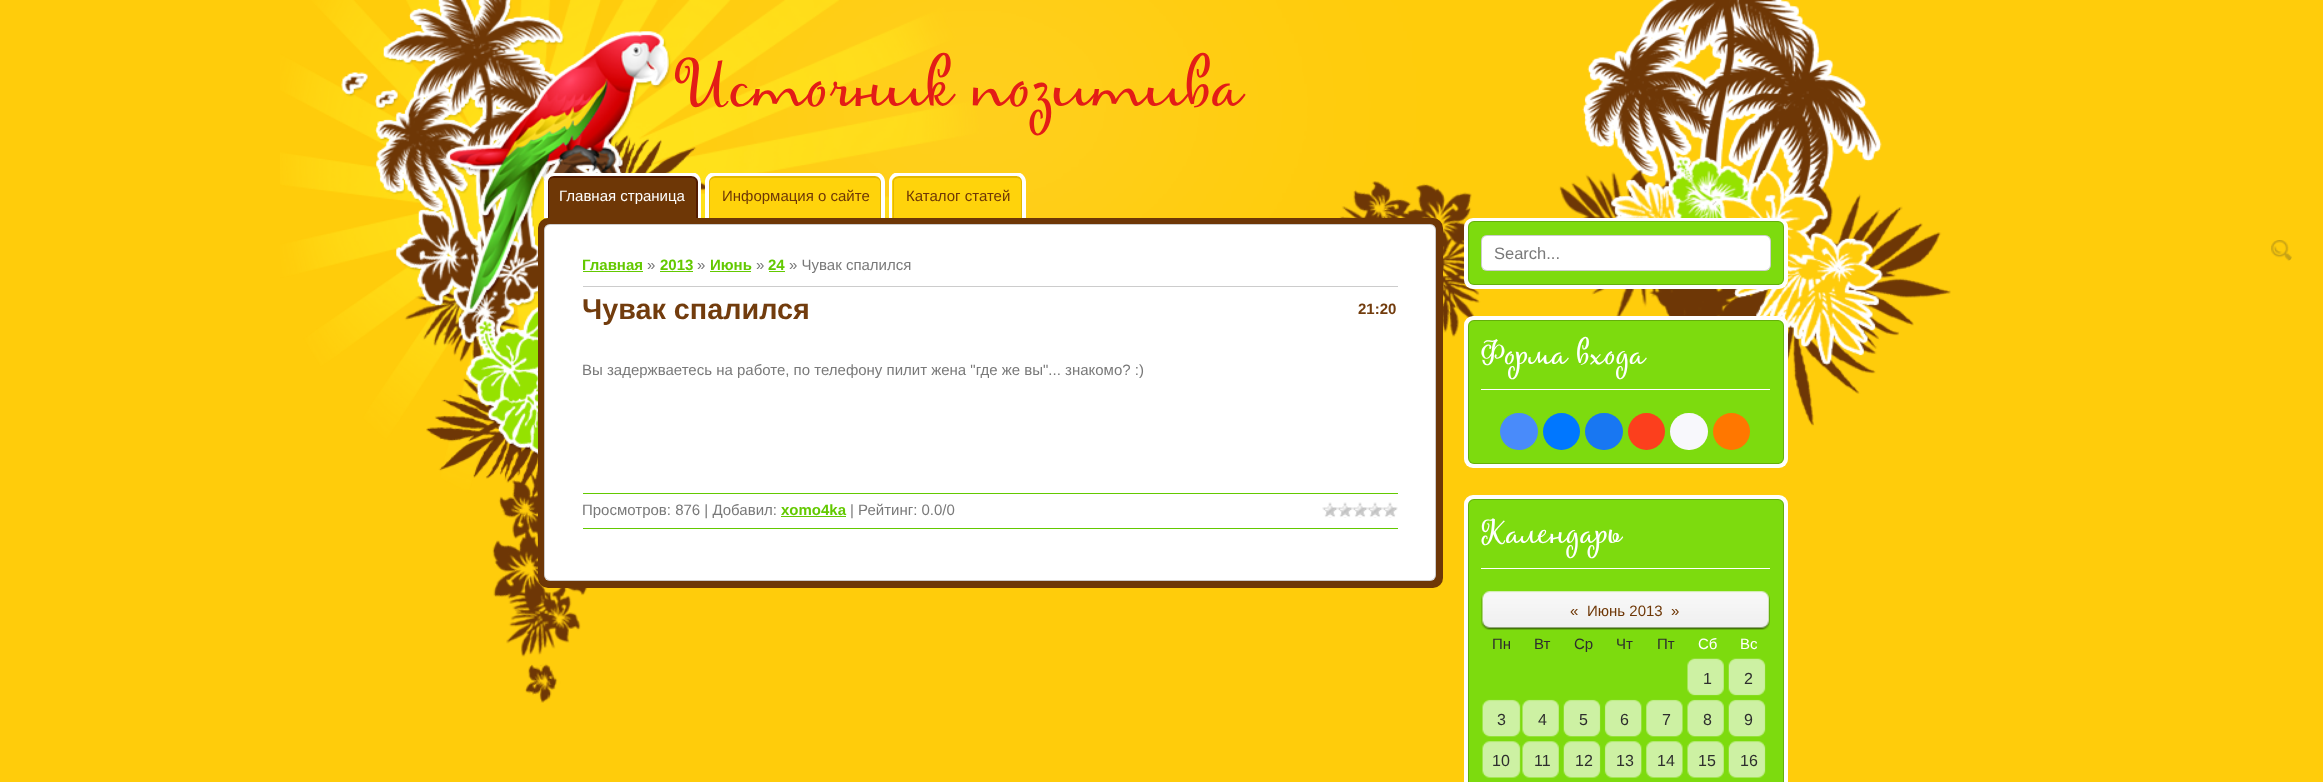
<svg xmlns="http://www.w3.org/2000/svg" width="2323" height="782" viewBox="0 0 2323 782">
  <style>
    .t1 { font: 58.75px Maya; fill: #e31c17; }
    .t2 { font: 15px Liberation Sans; fill: #fff; }
    .t3 { font: 15px Liberation Sans; fill: #6e3706; }
    .t4 { font: bold 15px Liberation Sans; fill: #63c900; }
    .t5 { font: 15px Liberation Sans; fill: #797979; }
    .t6 { font: bold 28.75px Liberation Sans; fill: #723c0d; }
    .t7 { font: bold 15px Liberation Sans; fill: #723c0d; }
    .t8 { font: 16.5px Liberation Sans; fill: #797979; }
    .t9 { font: 30px Maya; fill: #fff; }
    .t10 { font: 15px Liberation Sans; fill: #2e2e2e; }
    .t11 { font: 16px Liberation Sans; fill: #2e2e2e; }
  </style>
  <defs>
    <clipPath id="clip1"><rect x="544" y="173" width="900" height="45"/></clipPath>
  </defs>
  <rect width="100%" height="100%" fill="#ffcc0b"/>
  <image x="280" y="0" width="1671" height="703" href="images/1.png"/>
  <text x="674" y="106" class="t1">Источник позитива</text>
  <path d="M554 173H691C696.5 173 701 177.5 701 183V218H544V183C544 177.5 548.5 173 554 173Z" fill="#6e3706"/>
  <path d="M696 218H698V194C698 186 701 176 690 176C693 176 696 179 696 182Z" fill="#521b00"/>
  <path d="M554 176C551 176 548 179 548 182V218H549V182C549 179 552 176 555 176Z" fill="#521b00"/>
  <path d="M554 178H691C695 178 698 180 698 184V182C698 179 695 176 692 176H554C551 176 548 179 548 182V184C548 180 550 178 554 178Z" fill="#521b00"/>
  <g clip-path="url(#clip1)">
    <path d="M554 172H691C697 172 701 177 701 182V218H544V182C544 177 548 172 554 172ZM554 176H691C695 176 698 179 698 182V218H548V182C548 179 550 176 554 176Z" fill="#fff" fill-rule="evenodd"/>
  </g>
  <text x="559" y="201" class="t2">Главная страница</text>
  <path d="M715 173H875C880.5 173 885 177.5 885 183V218H705V183C705 177.5 709.5 173 715 173Z" fill="#ffd30b"/>
  <path d="M880 218H881V194C881 187 884 176 874 176C877 176 880 179 880 182Z" fill="#e3b700"/>
  <path d="M715 176C712 176 709 179 709 182V218H710V182C710 179 713 176 716 176Z" fill="#e3b700"/>
  <path d="M715 178H875C878 178 881 180 881 184V182C881 179 878 176 875 176H715C712 176 709 179 709 182V184C709 180 712 178 715 178Z" fill="#e3b700"/>
  <g clip-path="url(#clip1)">
    <path d="M715 172H875C881 172 885 177 885 182V218H705V182C705 177 709 172 715 172ZM715 176H875C878 176 881 179 881 182V218H709V182C709 179 712 176 715 176Z" fill="#fff" fill-rule="evenodd"/>
  </g>
  <text x="722" y="201" class="t3">Информация о сайте</text>
  <path d="M899 173H1016C1021.5 173 1026 177.5 1026 183V218H889V183C889 177.5 893.5 173 899 173Z" fill="#ffd30b"/>
  <path d="M1021 218H1023V194C1023 186 1026 176 1015 176C1018 176 1021 179 1021 182Z" fill="#e3b700"/>
  <path d="M899 176C896 176 893 179 893 182V218H894V182C894 179 897 176 900 176Z" fill="#e3b700"/>
  <path d="M899 178H1016C1020 178 1022 180 1022 184V218H1023V182C1023 179 1020 176 1017 176H899C896 176 894 178 893 180C895 179 897 178 899 178Z" fill="#e3b700"/>
  <g clip-path="url(#clip1)">
    <path d="M899 172H1016C1022 172 1026 177 1026 182V218H889V182C889 177 893 172 899 172ZM899 176H1016C1020 176 1022 179 1022 182V218H892V182C892 179 895 176 899 176Z" fill="#fff" fill-rule="evenodd"/>
  </g>
  <text x="906" y="201" class="t3">Каталог статей</text>
  <rect x="538" y="218" width="905" height="370" rx="10" fill="#6e3706"/>
  <rect x="544" y="224" width="892" height="357" rx="6" fill="#fff"/>
  <rect x="544.5" y="224.5" width="891" height="356" rx="5.5" fill="none" stroke="#00000033"/>
  <text x="582" y="270" class="t4">Главная</text>
  <rect x="583" y="271" width="60" height="1" fill="#63c900"/>
  <text x="647" y="270" class="t5">»</text>
  <text x="660" y="270" class="t4">2013</text>
  <rect x="660" y="271" width="33" height="1" fill="#63c900"/>
  <text x="697" y="270" class="t5">»</text>
  <text x="710" y="270" class="t4">Июнь</text>
  <rect x="710" y="271" width="41" height="1" fill="#63c900"/>
  <text x="756" y="270" class="t5">»</text>
  <text x="768" y="270" class="t4">24</text>
  <rect x="769" y="271" width="16" height="1" fill="#63c900"/>
  <text x="789" y="270" class="t5">» Чувак спалился</text>
  <rect x="583" y="286" width="815" height="1" fill="#ccc"/>
  <text x="582" y="319" class="t6">Чувак спалился</text>
  <text x="1358" y="314" class="t7">21:20</text>
  <text x="582" y="375" class="t5">Вы задержваетесь на работе, по телефону пилит жена "где же вы"... знакомо? :)</text>
  <rect x="583" y="493" width="815" height="1" fill="#63c900"/>
  <rect x="583" y="528" width="815" height="1" fill="#63c900"/>
  <text x="582" y="515" class="t5">Просмотров: 876 | Добавил:</text>
  <text x="781" y="515" class="t4">xomo4ka</text>
  <rect x="781" y="516" width="65" height="1" fill="#63c900"/>
  <text x="850" y="515" class="t5">| Рейтинг: 0.0/0</text>
  <image x="1322" y="502" width="76" height="16" href="images/2.png"/>
  <rect x="1464" y="218" width="324" height="71" rx="9" fill="#fff"/>
  <rect x="1468" y="221" width="316" height="64" rx="6" fill="#7ddb0e"/>
  <rect x="1468.5" y="221.5" width="315" height="63" rx="5.5" fill="none" stroke="#00000033"/>
  <rect x="1481" y="235" width="290" height="36" rx="6" fill="#fff"/>
  <rect x="1481.5" y="235.5" width="289" height="35" rx="5.5" fill="none" stroke="#00000033"/>
  <text x="1494" y="259" class="t8">Search...</text>
  <image x="2271" y="240" width="21" height="21" href="images/3.png"/>
  <rect x="1464" y="316" width="324" height="152" rx="9" fill="#fff"/>
  <rect x="1468" y="320" width="316" height="144" rx="6" fill="#7ddb0e"/>
  <rect x="1468.5" y="320.5" width="315" height="143" rx="5.5" fill="none" stroke="#00000033"/>
  <rect x="1481" y="389" width="289" height="1" fill="#fff"/>
  <text x="1481" y="364" class="t9">Форма входа</text>
  <rect x="1500" y="413" width="38" height="37" rx="18.5" fill="#498bfa"/>
  <circle cx="1561.5" cy="431.5" r="18.5" fill="#07f"/>
  <rect x="1585" y="413" width="38" height="37" rx="18.5" fill="#1877f2"/>
  <circle cx="1646.5" cy="431.5" r="18.5" fill="#fc3f1d"/>
  <rect x="1670" y="413" width="38" height="37" rx="18.5" fill="#f8f8fc"/>
  <circle cx="1731.5" cy="431.5" r="18.5" fill="#f70"/>
  <rect x="1464" y="495" width="324" height="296" rx="9" fill="#fff"/>
  <rect x="1468" y="499" width="316" height="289" rx="6" fill="#7ddb0e"/>
  <rect x="1468.5" y="499.5" width="315" height="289" rx="5.5" fill="none" stroke="#00000033"/>
  <rect x="1481" y="568" width="289" height="1" fill="#fff"/>
  <text x="1481" y="543" class="t9">Календарь</text>
  <image x="1481" y="591" width="289" height="39" href="images/4.png"/>
  <text x="1570" y="616" class="t3">«</text>
  <text x="1587" y="616" class="t3">Июнь 2013</text>
  <text x="1671" y="616" class="t3">»</text>
  <text x="1492" y="649" class="t10">Пн</text>
  <text x="1534" y="649" class="t10">Вт</text>
  <text x="1574" y="649" class="t10">Ср</text>
  <text x="1616" y="649" class="t10">Чт</text>
  <text x="1657" y="649" class="t10">Пт</text>
  <text x="1698" y="649" class="t2">Сб</text>
  <text x="1740" y="649" class="t2">Вс</text>
  <image x="1687" y="658" width="37" height="38" href="images/5.png"/>
  <text x="1703" y="684" class="t11">1</text>
  <image x="1728" y="658" width="38" height="38" href="images/6.png"/>
  <text x="1744" y="684" class="t11">2</text>
  <image x="1482" y="699" width="39" height="38" href="images/7.png"/>
  <text x="1497" y="725" class="t11">3</text>
  <image x="1522" y="699" width="37" height="38" href="images/8.png"/>
  <text x="1538" y="725" class="t11">4</text>
  <image x="1563" y="699" width="38" height="38" href="images/9.png"/>
  <text x="1579" y="725" class="t11">5</text>
  <image x="1604" y="699" width="38" height="38" href="images/10.png"/>
  <text x="1620" y="725" class="t11">6</text>
  <image x="1646" y="699" width="37" height="38" href="images/11.png"/>
  <text x="1662" y="725" class="t11">7</text>
  <image x="1687" y="699" width="37" height="38" href="images/8.png"/>
  <text x="1703" y="725" class="t11">8</text>
  <image x="1728" y="699" width="38" height="38" href="images/12.png"/>
  <text x="1744" y="725" class="t11">9</text>
  <image x="1482" y="741" width="39" height="37" href="images/13.png"/>
  <text x="1492" y="766" class="t11">10</text>
  <image x="1522" y="741" width="37" height="37" href="images/14.png"/>
  <text x="1534" y="766" class="t11">11</text>
  <image x="1563" y="741" width="38" height="37" href="images/15.png"/>
  <text x="1575" y="766" class="t11">12</text>
  <image x="1604" y="741" width="38" height="37" href="images/16.png"/>
  <text x="1616" y="766" class="t11">13</text>
  <image x="1646" y="741" width="37" height="37" href="images/17.png"/>
  <text x="1657" y="766" class="t11">14</text>
  <image x="1687" y="741" width="37" height="37" href="images/14.png"/>
  <text x="1698" y="766" class="t11">15</text>
  <image x="1728" y="741" width="38" height="37" href="images/18.png"/>
  <text x="1740" y="766" class="t11">16</text>
</svg>
